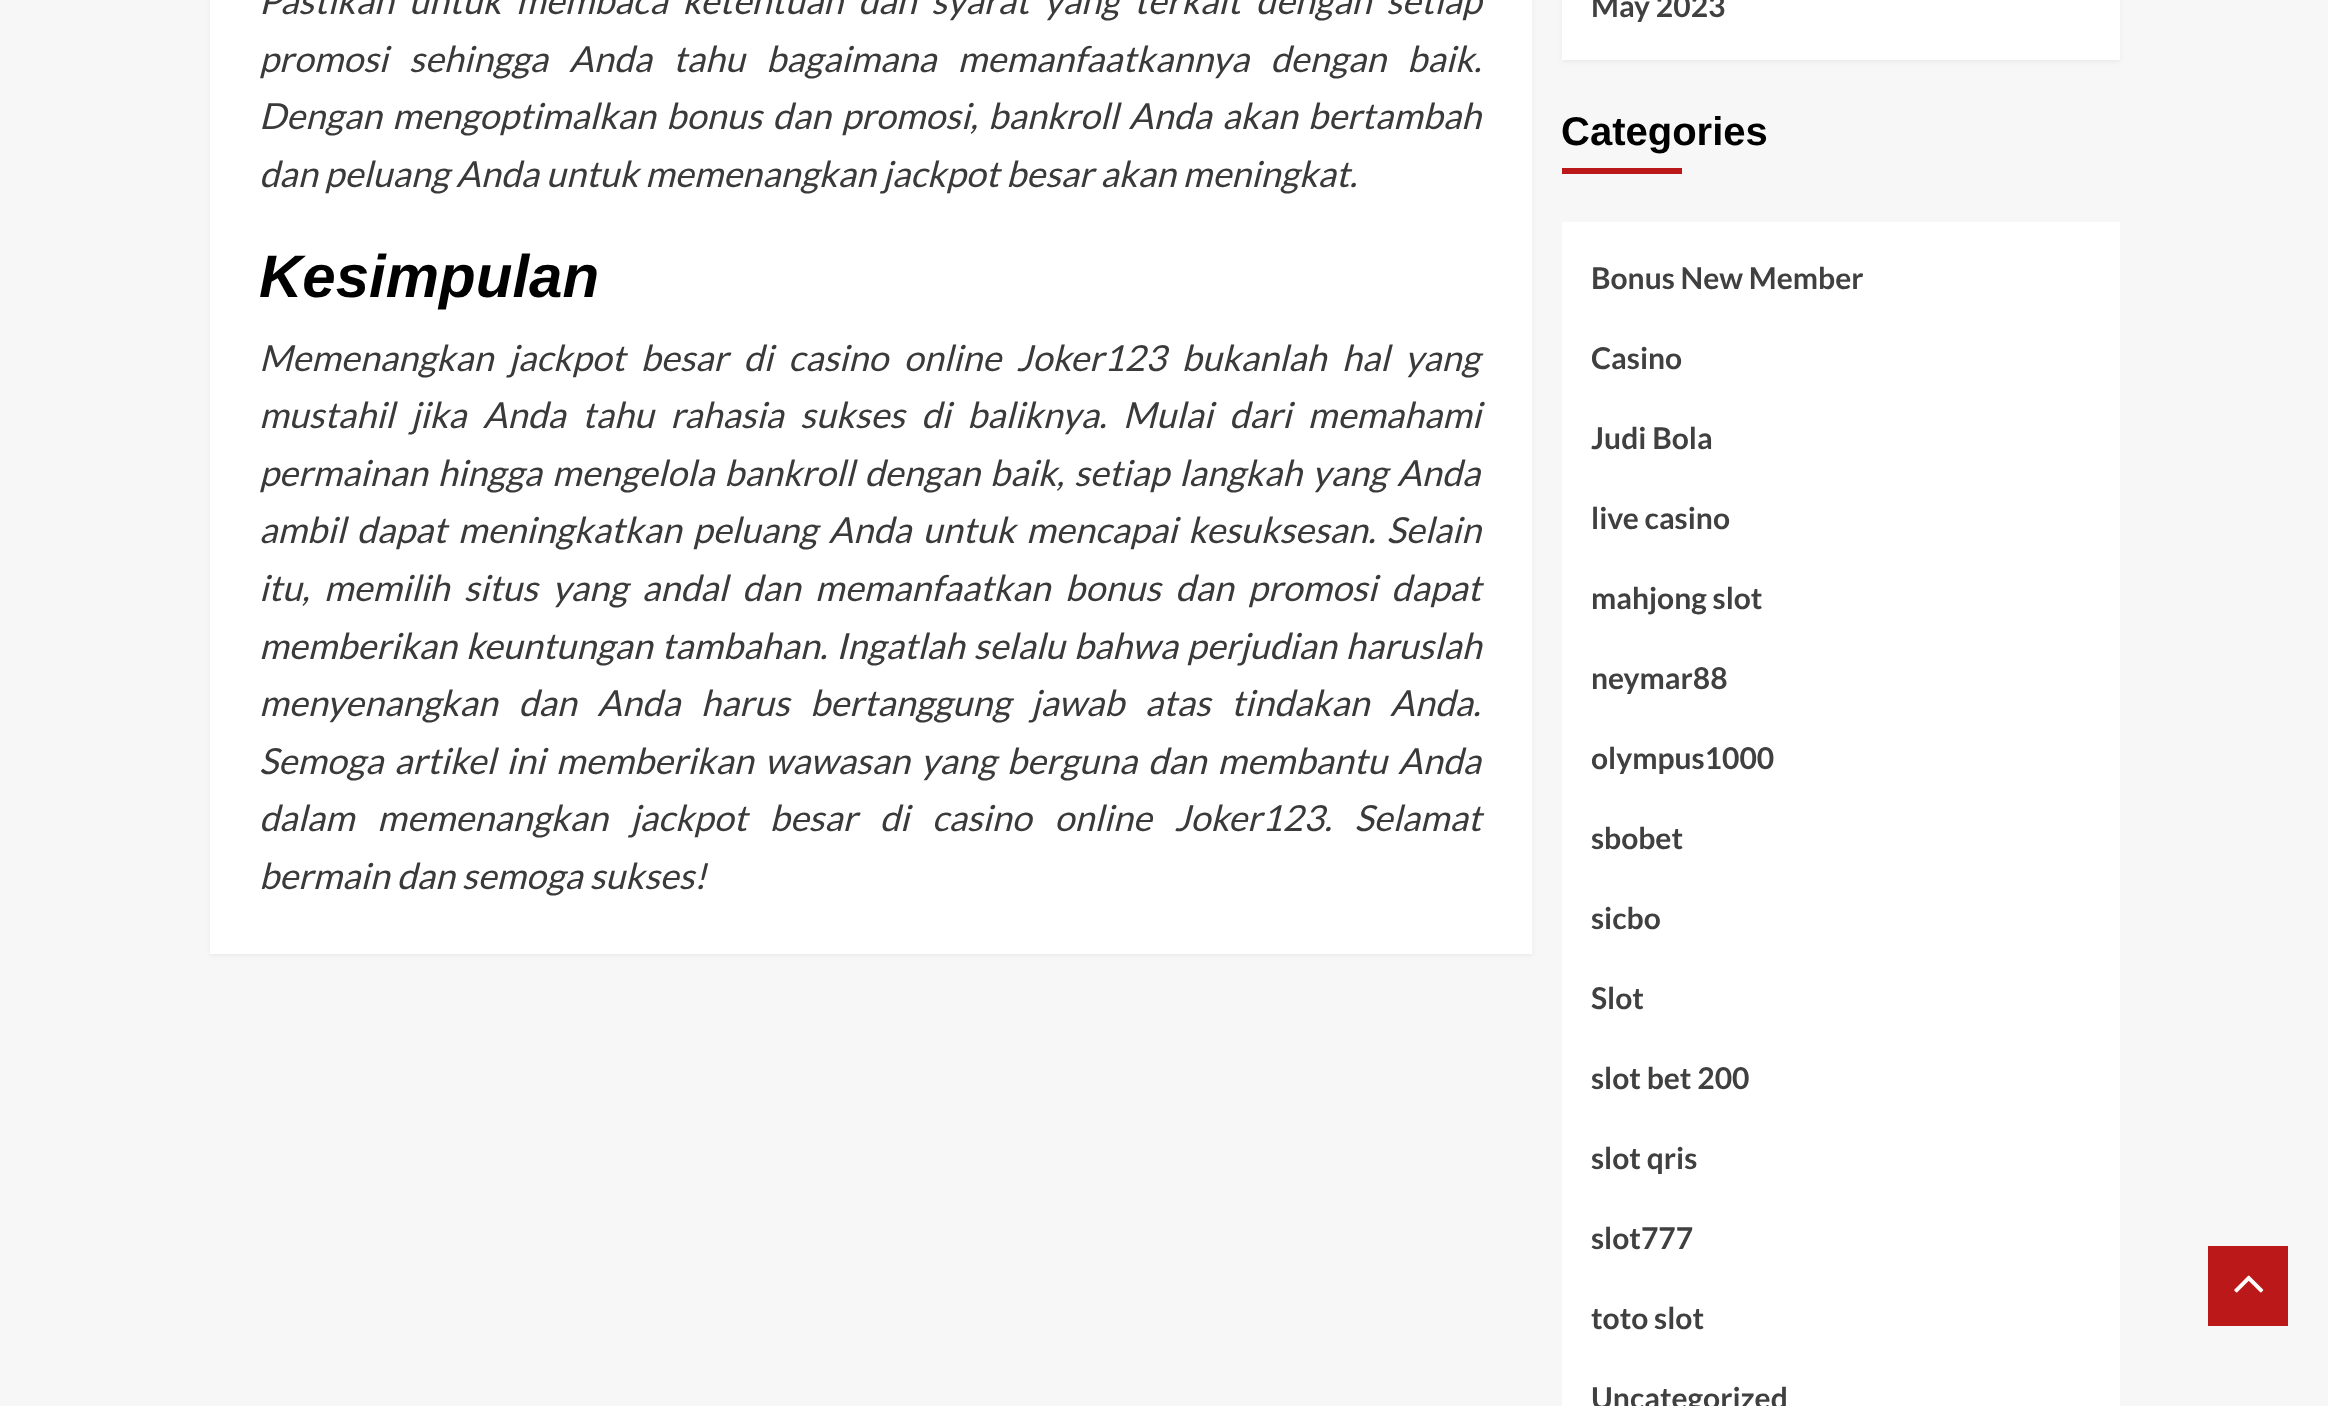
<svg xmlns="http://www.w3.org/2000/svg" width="2328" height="1406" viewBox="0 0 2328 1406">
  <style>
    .t1 { font: italic 36px Lato; fill: #3a3a3a; }
    .t2 { font: italic bold 60px Liberation Sans; fill: #000; }
    .t3 { font: bold 30px Lato; fill: #404040; }
    .t4 { font: bold 40px Liberation Sans; fill: #000; }
  </style>
  <rect width="100%" height="100%" fill="#f7f7f7"/>
  <rect x="210" y="-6" width="1322" height="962" fill="#0000000d" filter="blur(2px)"/>
  <rect x="210" y="0" width="1322" height="954" fill="#fff"/>
  <text x="259" y="14" word-spacing="8" class="t1">Pastikan untuk membaca ketentuan dan syarat yang terkait dengan setiap</text>
  <text x="259" y="72" word-spacing="14.25" class="t1">promosi sehingga Anda tahu bagaimana memanfaatkannya dengan baik.</text>
  <text x="259" y="129" word-spacing="3.5" class="t1">Dengan mengoptimalkan bonus dan promosi, bankroll Anda akan bertambah</text>
  <text x="259" y="187" class="t1">dan peluang Anda untuk memenangkan jackpot besar akan meningkat.</text>
  <text x="259" y="297" class="t2">Kesimpulan</text>
  <text x="259" y="371" word-spacing="8.5" class="t1">Memenangkan jackpot besar di casino online Joker123 bukanlah hal yang</text>
  <text x="259" y="428" word-spacing="9.5" class="t1">mustahil jika Anda tahu rahasia sukses di baliknya. Mulai dari memahami</text>
  <text x="259" y="486" word-spacing="3" class="t1">permainan hingga mengelola bankroll dengan baik, setiap langkah yang Anda</text>
  <text x="259" y="543" word-spacing="4.25" class="t1">ambil dapat meningkatkan peluang Anda untuk mencapai kesuksesan. Selain</text>
  <text x="259" y="601" word-spacing="7.5" class="t1">itu, memilih situs yang andal dan memanfaatkan bonus dan promosi dapat</text>
  <text x="259" y="659" word-spacing="2" class="t1">memberikan keuntungan tambahan. Ingatlah selalu bahwa perjudian haruslah</text>
  <text x="259" y="716" word-spacing="13.75" class="t1">menyenangkan dan Anda harus bertanggung jawab atas tindakan Anda.</text>
  <text x="259" y="774" word-spacing="4" class="t1">Semoga artikel ini memberikan wawasan yang berguna dan membantu Anda</text>
  <text x="259" y="831" word-spacing="15.75" class="t1">dalam memenangkan jackpot besar di casino online Joker123. Selamat</text>
  <text x="259" y="889" class="t1">bermain dan semoga sukses!</text>
  <rect x="1562" y="-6" width="558" height="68" fill="#0000000d" filter="blur(2px)"/>
  <rect x="1562" y="0" width="558" height="60" fill="#fff"/>
  <text x="1591" y="17" class="t3">May 2023</text>
  <text x="1561" y="145" class="t4">Categories</text>
  <rect x="1562" y="168" width="120" height="6" fill="#bb1919"/>
  <rect x="1562" y="222" width="558" height="1184" fill="#fff"/>
  <text x="1591" y="289" class="t3">Bonus New Member</text>
  <text x="1591" y="369" class="t3">Casino</text>
  <text x="1591" y="449" class="t3">Judi Bola</text>
  <text x="1591" y="529" class="t3">live casino</text>
  <text x="1591" y="609" class="t3">mahjong slot</text>
  <text x="1591" y="689" class="t3">neymar88</text>
  <text x="1591" y="769" class="t3">olympus1000</text>
  <text x="1591" y="849" class="t3">sbobet</text>
  <text x="1591" y="929" class="t3">sicbo</text>
  <text x="1591" y="1009" class="t3">Slot</text>
  <text x="1591" y="1089" class="t3">slot bet 200</text>
  <text x="1591" y="1169" class="t3">slot qris</text>
  <text x="1591" y="1249" class="t3">slot777</text>
  <text x="1591" y="1329" class="t3">toto slot</text>
  <text x="1591" y="1409" class="t3">Uncategorized</text>
  <rect x="2208" y="1246" width="80" height="80" fill="#bb1919"/>
  <image x="2234" y="1275" width="30" height="18" href="images/1.png"/>
</svg>
